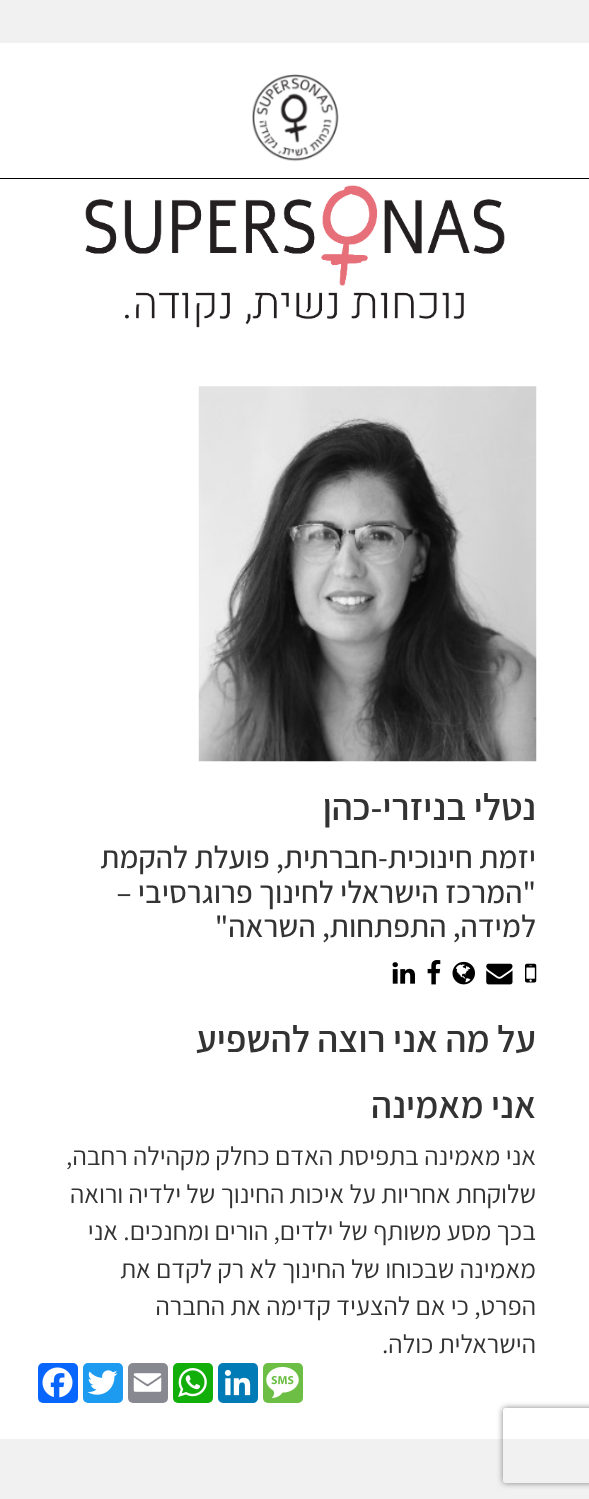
<svg xmlns="http://www.w3.org/2000/svg" width="589" height="1499" viewBox="0 0 589 1499">
  <style>
    .t1 { font: 600 37.5px Assistant; direction: rtl; fill: #333; }
    .t2 { font: 500 31.25px Assistant; direction: rtl; fill: #333; }
    .t3 { font: 26.25px Assistant; direction: rtl; fill: #333; }
  </style>
  <defs>
    <clipPath id="clip1"><path d="M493 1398H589V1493H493ZM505.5 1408H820.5C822 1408 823 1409 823 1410.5V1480.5C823 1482 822 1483 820.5 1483H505.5C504 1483 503 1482 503 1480.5V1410.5C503 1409 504 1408 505.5 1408Z" clip-rule="evenodd"/></clipPath>
  </defs>
  <rect width="100%" height="100%" fill="#f2f1f1"/>
  <rect x="0" y="43" width="589" height="135" fill="#fff"/>
  <rect x="0" y="178" width="589" height="1" fill="#000"/>
  <image x="252" y="74" width="87" height="88" href="images/1.png"/>
  <rect x="0" y="179" width="589" height="1260" fill="#fff"/>
  <image x="85" y="185" width="420" height="143" href="images/2.png"/>
  <image x="198" y="386" width="339" height="376" href="images/3.png"/>
  <text x="536" y="820" class="t1">נטלי בניזרי-כהן</text>
  <text x="536" y="868" class="t2">יזמת חינוכית-חברתית, פועלת להקמת</text>
  <text x="536" y="903" class="t2">"המרכז הישראלי לחינוך פרוגרסיבי –</text>
  <text x="536" y="937" class="t2">למידה, התפתחות, השראה"</text>
  <image x="525" y="963" width="12" height="20" href="images/4.png"/>
  <image x="486" y="963" width="27" height="22" href="images/5.png"/>
  <image x="452" y="961" width="23" height="24" href="images/6.png"/>
  <image x="427" y="960" width="14" height="25" href="images/7.png"/>
  <image x="392" y="962" width="23" height="22" href="images/8.png"/>
  <text x="536" y="1052" class="t1">על מה אני רוצה להשפיע</text>
  <text x="536" y="1118" class="t1">אני מאמינה</text>
  <text x="536" y="1165" class="t3">אני מאמינה בתפיסת האדם כחלק מקהילה רחבה,</text>
  <text x="536" y="1203" class="t3">שלוקחת אחריות על איכות החינוך של ילדיה ורואה</text>
  <text x="536" y="1240" class="t3">בכך מסע משותף של ילדים, הורים ומחנכים. אני</text>
  <text x="536" y="1278" class="t3">מאמינה שבכוחו של החינוך לא רק לקדם את</text>
  <text x="536" y="1315" class="t3">הפרט, כי אם להצעיד קדימה את החברה</text>
  <text x="536" y="1353" class="t3">הישראלית כולה.</text>
  <rect x="263" y="1363" width="40" height="40" rx="5" fill="#6cbe45"/>
  <image x="266" y="1366" width="33" height="32" href="images/9.png"/>
  <rect x="218" y="1363" width="40" height="40" rx="5" fill="#007bb5"/>
  <image x="224" y="1369" width="27" height="27" href="images/10.png"/>
  <rect x="173" y="1363" width="40" height="40" rx="5" fill="#12af0a"/>
  <image x="178" y="1368" width="29" height="29" href="images/11.png"/>
  <rect x="128" y="1363" width="40" height="40" rx="5" fill="#888990"/>
  <image x="133" y="1373" width="29" height="19" href="images/12.png"/>
  <rect x="83" y="1363" width="40" height="40" rx="5" fill="#1d9bf0"/>
  <image x="87" y="1370" width="31" height="25" href="images/13.png"/>
  <rect x="38" y="1363" width="40" height="40" rx="5" fill="#0866ff"/>
  <image x="42" y="1367" width="31" height="31" href="images/14.png"/>
  <g clip-path="url(#clip1)">
    <rect x="503" y="1408" width="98" height="75" rx="2.5" fill="#808080" filter="blur(3px)"/>
  </g>
</svg>
